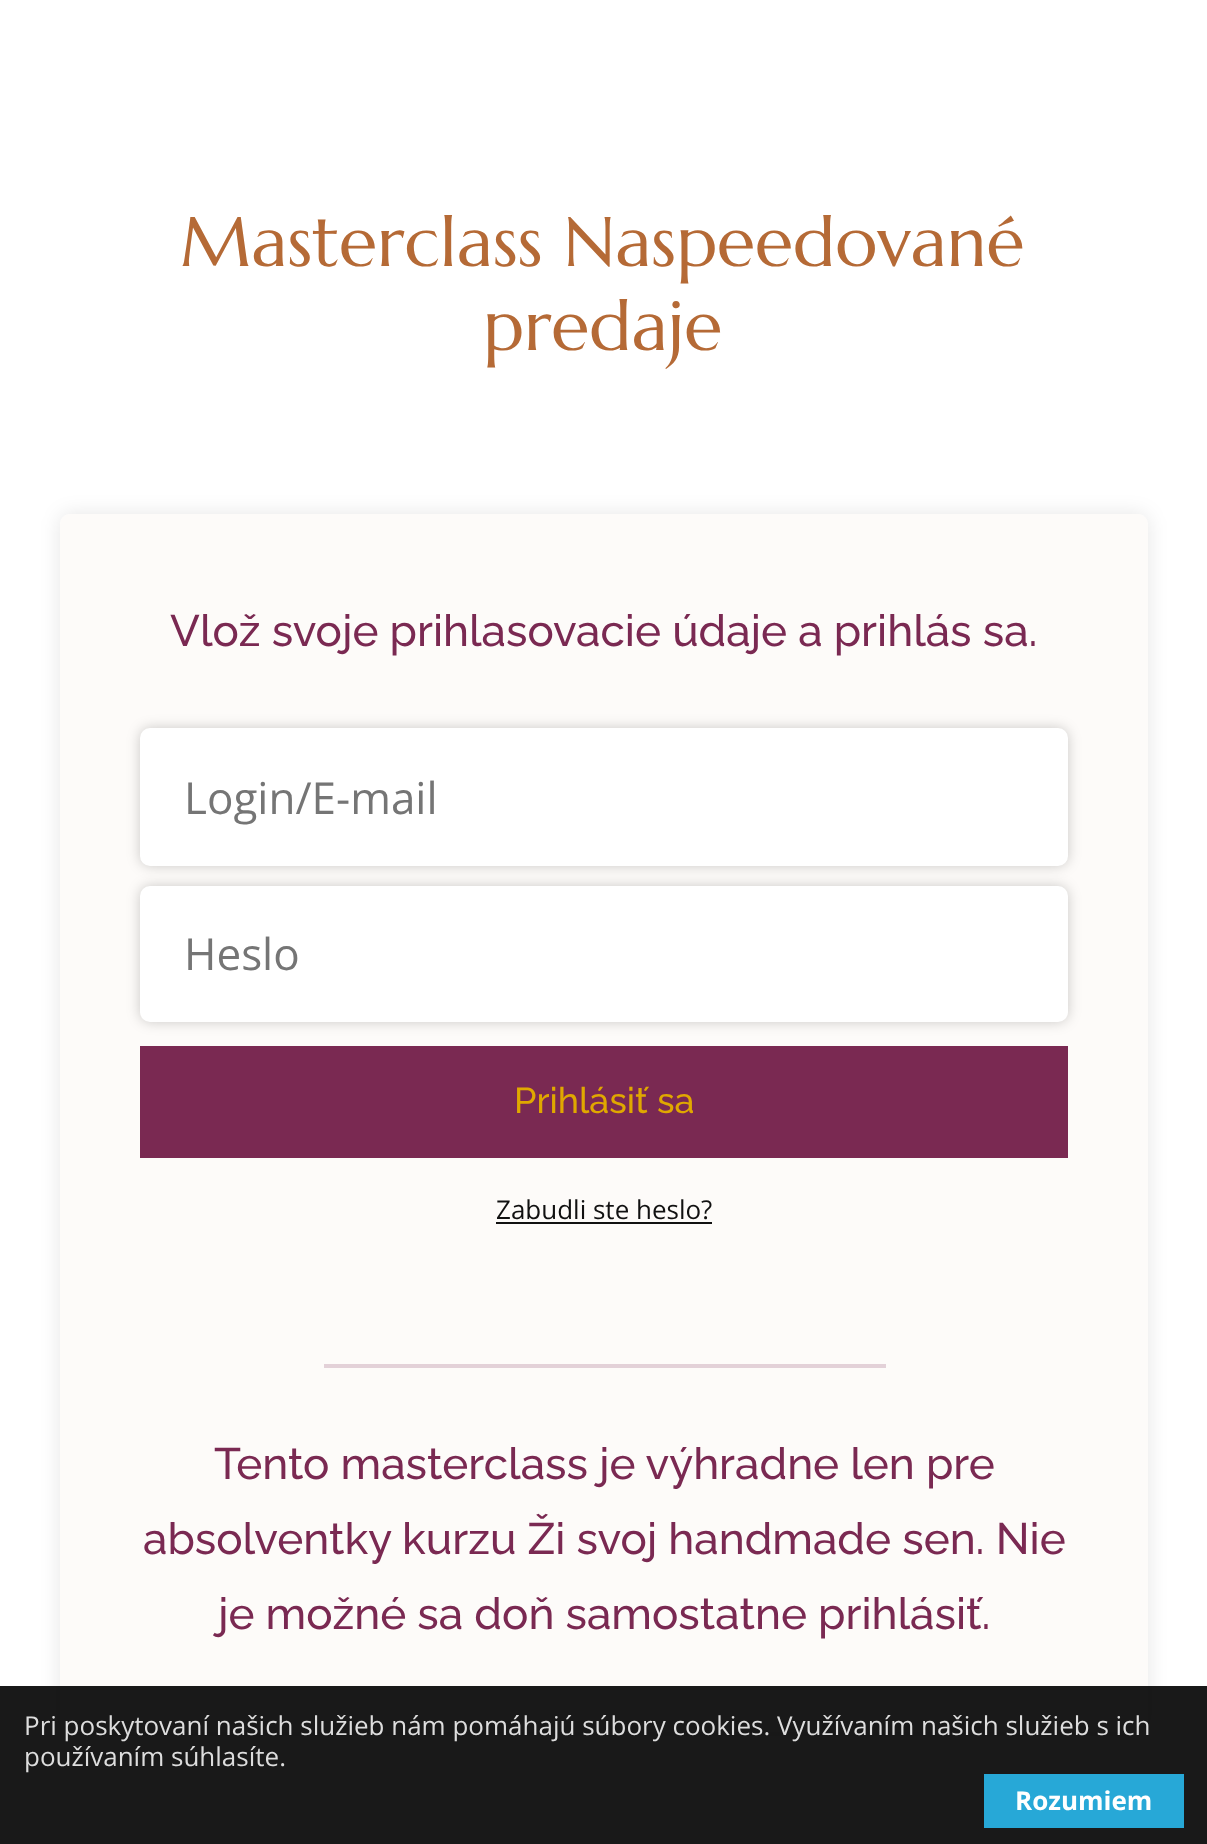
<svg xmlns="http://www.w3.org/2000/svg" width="1207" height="1844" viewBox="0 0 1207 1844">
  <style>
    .t1 { font: 70px Marcellus; fill: #b56a36; }
    .t2 { font: 100 44px Raleway; fill: #7a2952; }
    .t3 { font: 44px Open Sans; fill: #757575; }
    .t4 { font: 100 36px Raleway; fill: #e0a800; }
    .t5 { font: 26px Open Sans; fill: #111; }
    .t6 { font: 26px Open Sans; fill: #ddd; }
    .t7 { font: bold 26px Open Sans; fill: #fff; }
  </style>
  <defs>
    <clipPath id="clip1"><path d="M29 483H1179V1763H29ZM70 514H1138C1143.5 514 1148 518.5 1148 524V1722C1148 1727.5 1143.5 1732 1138 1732H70C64.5 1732 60 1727.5 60 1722V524C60 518.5 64.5 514 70 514Z" clip-rule="evenodd"/></clipPath>
  </defs>
  <rect width="100%" height="100%" fill="#fff"/>
  <text x="180" y="266" class="t1">Masterclass Naspeedované</text>
  <text x="483" y="350" class="t1">predaje</text>
  <g clip-path="url(#clip1)">
    <rect x="60" y="514" width="1088" height="1218" rx="10" fill="#0000001a" filter="blur(10px)"/>
  </g>
  <rect x="60" y="514" width="1088" height="1218" rx="10" fill="#faf5f066"/>
  <text x="170" y="646" class="t2">Vlož svoje prihlasovacie údaje a prihlás sa.</text>
  <rect x="140" y="728" width="928" height="138" rx="10" fill="#00000033" filter="blur(6.5px)"/>
  <rect x="140" y="728" width="928" height="138" rx="10" fill="#fff"/>
  <text x="184" y="814" class="t3">Login/E-mail</text>
  <rect x="140" y="886" width="928" height="136" rx="10" fill="#00000033" filter="blur(6.5px)"/>
  <rect x="140" y="886" width="928" height="136" rx="10" fill="#fff"/>
  <text x="184" y="970" class="t3">Heslo</text>
  <rect x="140" y="1046" width="928" height="112" fill="#7a2952"/>
  <text x="514" y="1113" class="t4">Prihlásiť sa</text>
  <text x="496" y="1219" class="t5">Zabudli ste heslo?</text>
  <rect x="496" y="1222" width="216" height="2" fill="#111"/>
  <rect x="324" y="1364" width="562" height="4" fill="#e3d1d8"/>
  <text x="214" y="1479" class="t2">Tento masterclass je výhradne len pre</text>
  <text x="143" y="1554" class="t2">absolventky kurzu Ži svoj handmade sen. Nie</text>
  <text x="218" y="1629" class="t2">je možné sa doň samostatne prihlásiť.</text>
  <rect x="0" y="1686" width="1207" height="158" fill="#000000e6"/>
  <text x="24" y="1735" class="t6">Pri poskytovaní našich služieb nám pomáhajú súbory cookies. Využívaním našich služieb s ich</text>
  <text x="24" y="1766" class="t6">používaním súhlasíte.</text>
  <rect x="984" y="1774" width="200" height="54" fill="#27a8d7"/>
  <text x="1015" y="1810" class="t7">Rozumiem</text>
</svg>
